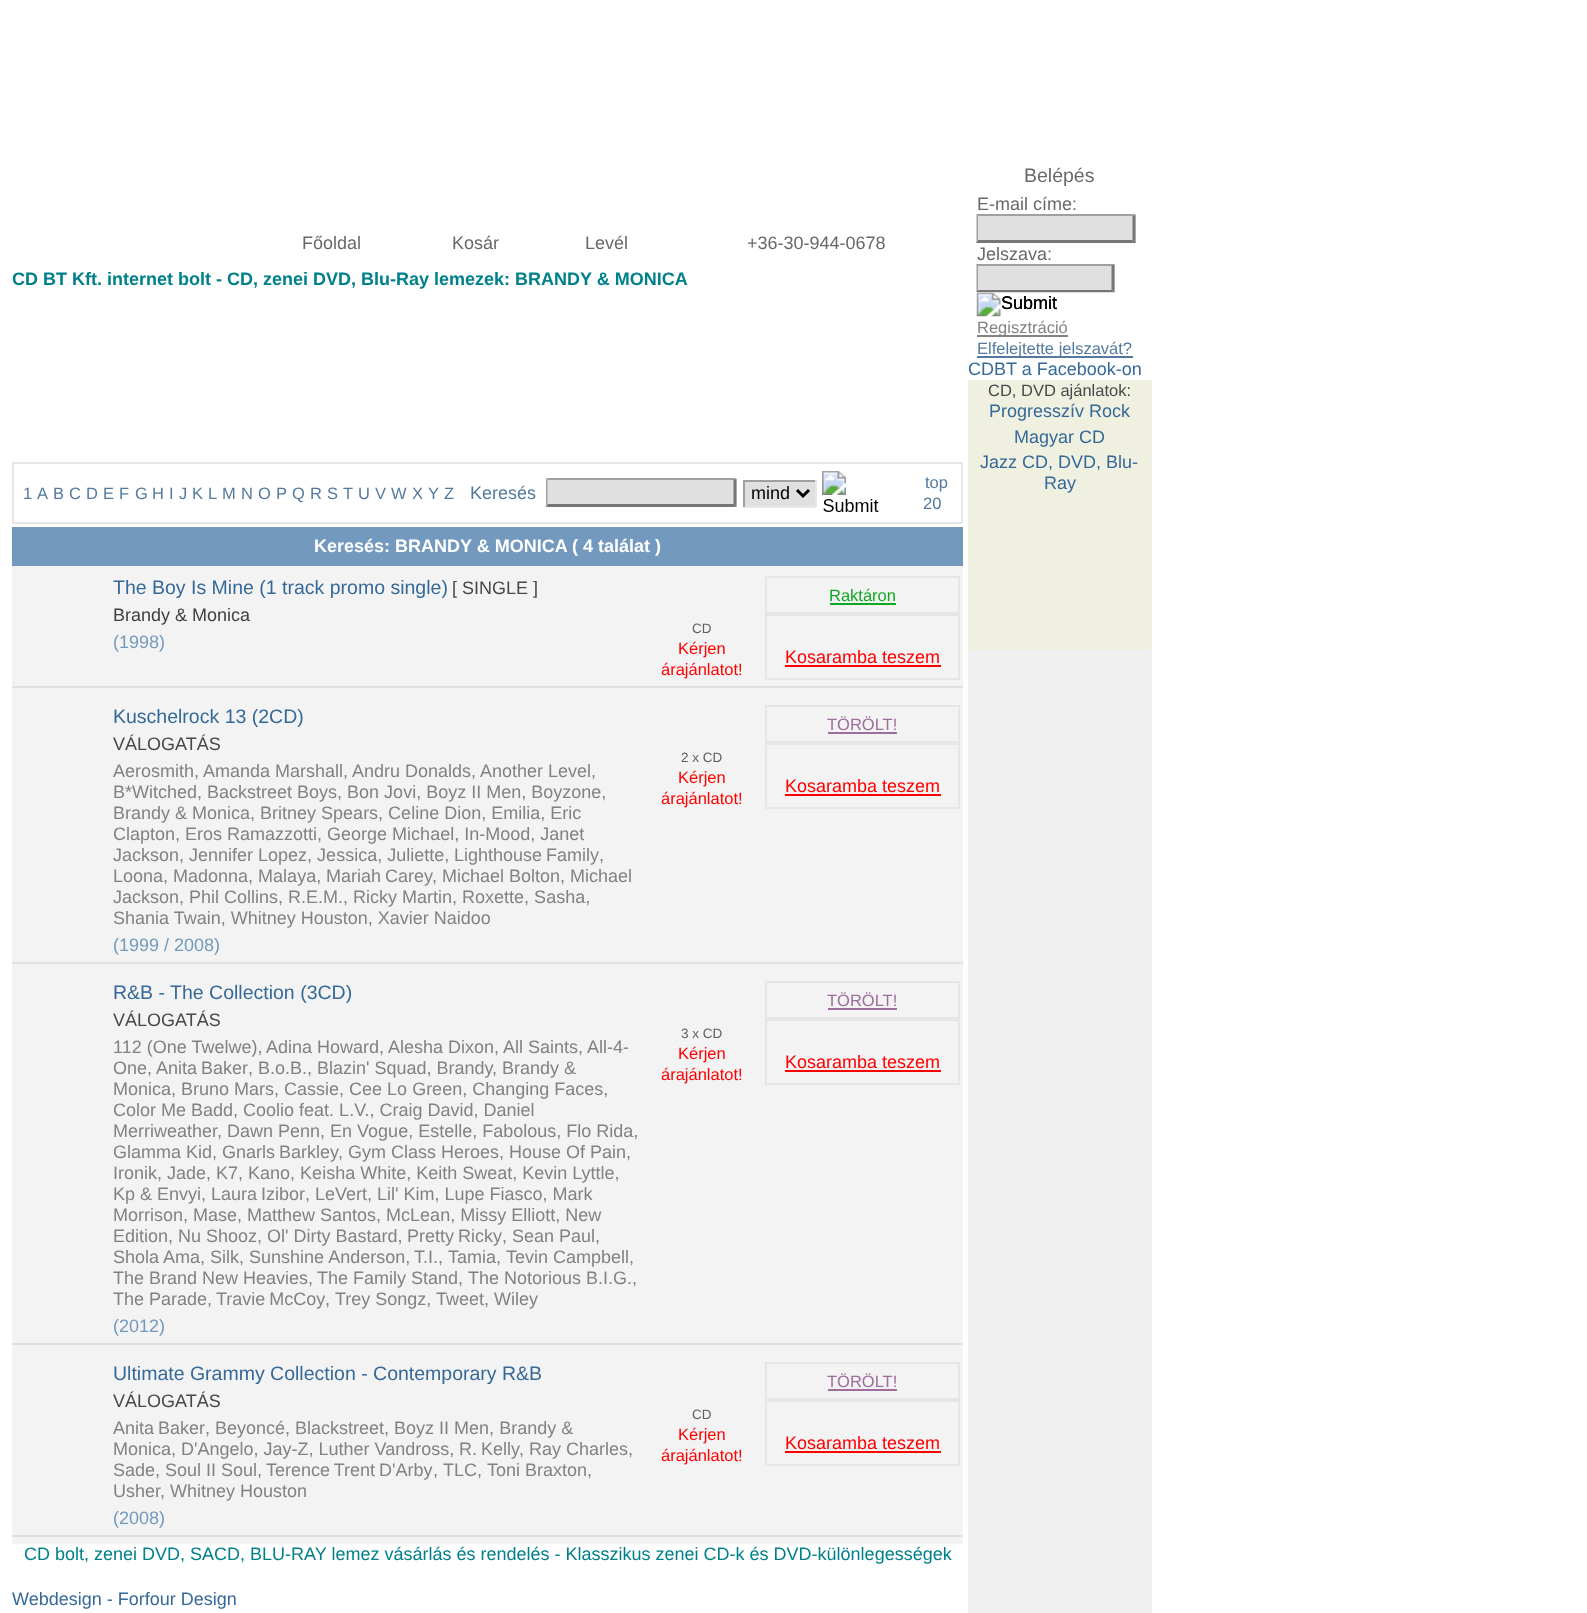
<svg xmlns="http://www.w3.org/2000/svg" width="1587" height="1613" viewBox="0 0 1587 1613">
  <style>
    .t1 { font: 18px Liberation Sans; fill: #686868; }
    .t2 { font: bold 18px Liberation Sans; fill: #00808b; }
    .t3 { font: 19.5px Liberation Sans; fill: #686868; }
    .t4 { font: 18px Liberation Sans; fill: #000; }
    .t5 { font: 16.5px Liberation Sans; fill: #828282; }
    .t6 { font: 16.5px Liberation Sans; fill: #537a9e; }
    .t7 { font: 18px Liberation Sans; fill: #356999; }
    .t8 { font: 16.5px Liberation Sans; fill: #484848; }
    .t9 { font: 18px Liberation Sans; fill: #537a9e; }
    .t10 { font: bold 18px Liberation Sans; fill: #fff; }
    .t11 { font: 19.5px Liberation Sans; fill: #356999; }
    .t12 { font: 18px Liberation Sans; fill: #484848; }
    .t13 { font: 18px Liberation Sans; fill: #404040; }
    .t14 { font: 18px Liberation Sans; fill: #739abe; }
    .t15 { font: 13.5px Liberation Sans; fill: #606060; }
    .t16 { font: 16.5px Liberation Sans; fill: #f00; }
    .t17 { font: 16.5px Liberation Sans; fill: #0ea924; }
    .t18 { font: 18px Liberation Sans; fill: #f00; }
    .t19 { font: 18px Liberation Sans; fill: #828282; }
    .t20 { font: 16.5px Liberation Sans; fill: #9c6d9d; }
    .t21 { font: 18px Liberation Sans; fill: #00808b; }
  </style>
  <rect width="100%" height="100%" fill="#fff"/>
  <text x="302" y="249" class="t1">Főoldal</text>
  <text x="452" y="249" class="t1">Kosár</text>
  <text x="585" y="249" class="t1">Levél</text>
  <text x="747" y="249" class="t1">+36-30-944-0678</text>
  <text x="12" y="285" class="t2">CD BT Kft. internet bolt - CD, zenei DVD, Blu-Ray lemezek: BRANDY &amp; MONICA</text>
  <text x="1024" y="182" class="t3">Belépés</text>
  <text x="977" y="210" class="t1">E-mail címe:</text>
  <rect x="977" y="215" width="159" height="28" fill="#e0e0e0"/>
  <path d="M976 214H1136L1132 216H978Z" fill="#a0a0a0"/>
  <path d="M1135.5 214.5V243L1132.5 240V216Z" fill="#767676"/>
  <path d="M1136 243H976L978 240H1132Z" fill="#767676"/>
  <path d="M976.5 243V214.5L978 216V240Z" fill="#a0a0a0"/>
  <text x="977" y="260" class="t1">Jelszava:</text>
  <rect x="977" y="264" width="138" height="29" fill="#e0e0e0"/>
  <path d="M976 264H1114L1112 266H978Z" fill="#a0a0a0"/>
  <path d="M1114.5 264V292.5L1111.5 289.5V265.5Z" fill="#767676"/>
  <path d="M1114 292H976L978 290H1112Z" fill="#767676"/>
  <path d="M976.5 292.5V264L978 265.5V289.5Z" fill="#a0a0a0"/>
  <image x="976" y="292" width="81" height="25" href="images/1.png"/>
  <text x="1001" y="309" class="t4">Submit</text>
  <rect x="977" y="335" width="91" height="2" fill="#828282"/>
  <text x="977" y="333" class="t5">Regisztráció</text>
  <rect x="977" y="356" width="156" height="2" fill="#537a9e"/>
  <text x="977" y="354" class="t6">Elfelejtette jelszavát?</text>
  <text x="968" y="375" class="t7">CDBT a Facebook-on</text>
  <rect x="968" y="380" width="184" height="1233" fill="#f0f0f0"/>
  <rect x="968" y="380" width="183" height="270" fill="#f0f0e0"/>
  <text x="988" y="396" class="t8">CD, DVD ajánlatok:</text>
  <text x="989" y="417" class="t7">Progresszív Rock</text>
  <text x="1014" y="443" class="t7">Magyar CD</text>
  <text x="980" y="468" class="t7">Jazz CD, DVD, Blu-</text>
  <text x="1044" y="489" class="t7">Ray</text>
  <rect x="13" y="463" width="949" height="60" fill="none" stroke="#e6e6e6" stroke-width="2"/>
  <text x="23" y="499" class="t6">1</text>
  <text x="37" y="499" class="t6">A</text>
  <text x="53" y="499" class="t6">B</text>
  <text x="69" y="499" class="t6">C</text>
  <text x="86" y="499" class="t6">D</text>
  <text x="103" y="499" class="t6">E</text>
  <text x="119" y="499" class="t6">F</text>
  <text x="135" y="499" class="t6">G</text>
  <text x="152" y="499" class="t6">H</text>
  <text x="169" y="499" class="t6">I</text>
  <text x="179" y="499" class="t6">J</text>
  <text x="192" y="499" class="t6">K</text>
  <text x="208" y="499" class="t6">L</text>
  <text x="222" y="499" class="t6">M</text>
  <text x="241" y="499" class="t6">N</text>
  <text x="258" y="499" class="t6">O</text>
  <text x="276" y="499" class="t6">P</text>
  <text x="292" y="499" class="t6">Q</text>
  <text x="310" y="499" class="t6">R</text>
  <text x="327" y="499" class="t6">S</text>
  <text x="343" y="499" class="t6">T</text>
  <text x="358" y="499" class="t6">U</text>
  <text x="375" y="499" class="t6">V</text>
  <text x="391" y="499" class="t6">W</text>
  <text x="412" y="499" class="t6">X</text>
  <text x="428" y="499" class="t6">Y</text>
  <text x="444" y="499" class="t6">Z</text>
  <text x="470" y="499" class="t9">Keresés</text>
  <rect x="546" y="479" width="191" height="28" fill="#e0e0e0"/>
  <path d="M546 478H736L734 480H548Z" fill="#a0a0a0"/>
  <path d="M736.5 478.5V507L733.5 504V480Z" fill="#767676"/>
  <path d="M736 507H546L548 504H734Z" fill="#767676"/>
  <path d="M546 507V478.5L547.5 480V504Z" fill="#a0a0a0"/>
  <rect x="745" y="482" width="70" height="24" fill="#e0e0e0"/>
  <rect x="743" y="480" width="73" height="2" fill="#a0a0a0"/>
  <rect x="815" y="480" width="2" height="27" fill="#e6e6e6"/>
  <rect x="743" y="506" width="73" height="2" fill="#e6e6e6"/>
  <rect x="743" y="480" width="2" height="27" fill="#a0a0a0"/>
  <path d="M797 490L803 496L809 490" fill="none" stroke="#000" stroke-width="3"/>
  <text x="751" y="499" class="t4">mind</text>
  <image x="822" y="471" width="57" height="41" href="images/2.png"/>
  <text x="925" y="488" class="t6">top</text>
  <text x="923" y="509" class="t6">20</text>
  <rect x="12" y="527" width="951" height="39" fill="#739abe"/>
  <text x="314" y="552" class="t10">Keresés: BRANDY &amp; MONICA ( 4 találat )</text>
  <rect x="12" y="566" width="951" height="978" fill="#f3f3f3"/>
  <text x="113" y="594" class="t11">The Boy Is Mine (1 track promo single)</text>
  <text x="452" y="594" class="t12">[ SINGLE ]</text>
  <text x="113" y="621" class="t13">Brandy &amp; Monica</text>
  <text x="113" y="648" class="t14">(1998)</text>
  <text x="692" y="633" class="t15">CD</text>
  <text x="678" y="654" class="t16">Kérjen</text>
  <text x="661" y="675" class="t16">árajánlatot!</text>
  <rect x="766" y="577" width="193" height="36" fill="none" stroke="#e6e6e6" stroke-width="2"/>
  <text x="829" y="601" class="t17">Raktáron</text>
  <rect x="830" y="603" width="66" height="2" fill="#0ea924"/>
  <rect x="766" y="615" width="193" height="64" fill="none" stroke="#e6e6e6" stroke-width="2"/>
  <text x="785" y="663" class="t18">Kosaramba teszem</text>
  <rect x="785" y="665" width="156" height="2" fill="#f00"/>
  <rect x="12" y="686" width="951" height="2" fill="#e0e0e0"/>
  <text x="113" y="723" class="t11">Kuschelrock 13 (2CD)</text>
  <text x="113" y="750" class="t12">VÁLOGATÁS</text>
  <text x="113" y="777" class="t19">Aerosmith,</text>
  <text x="203" y="777" class="t19">Amanda Marshall,</text>
  <text x="352" y="777" class="t19">Andru Donalds,</text>
  <text x="480" y="777" class="t19">Another Level,</text>
  <text x="113" y="798" class="t19">B*Witched, Backstreet Boys, Bon Jovi, Boyz II Men, Boyzone,</text>
  <text x="113" y="819" class="t19">Brandy &amp; Monica, Britney Spears, Celine Dion, Emilia, Eric</text>
  <text x="113" y="840" class="t19">Clapton, Eros Ramazzotti, George Michael, In-Mood, Janet</text>
  <text x="113" y="861" class="t19">Jackson, Jennifer Lopez, Jessica, Juliette,</text>
  <text x="454" y="861" word-spacing="-1" class="t19">Lighthouse Family</text>
  <text x="599" y="861" class="t19">,</text>
  <text x="113" y="882" class="t19">Loona, Madonna, Malaya,</text>
  <text x="326" y="882" word-spacing="-1" class="t19">Mariah Carey</text>
  <text x="432" y="882" class="t19">, Michael Bolton, Michael</text>
  <text x="113" y="903" class="t19">Jackson, Phil Collins, R.E.M., Ricky Martin, Roxette, Sasha,</text>
  <text x="113" y="924" class="t19">Shania Twain, Whitney Houston, Xavier Naidoo</text>
  <text x="113" y="951" class="t14">(1999 / 2008)</text>
  <text x="681" y="762" class="t15">2 x CD</text>
  <text x="678" y="783" class="t16">Kérjen</text>
  <text x="661" y="804" class="t16">árajánlatot!</text>
  <rect x="766" y="706" width="193" height="36" fill="none" stroke="#e6e6e6" stroke-width="2"/>
  <text x="827" y="730" class="t20">TÖRÖLT!</text>
  <rect x="828" y="732" width="69" height="2" fill="#9c6d9d"/>
  <rect x="766" y="744" width="193" height="64" fill="none" stroke="#e6e6e6" stroke-width="2"/>
  <text x="785" y="792" class="t18">Kosaramba teszem</text>
  <rect x="785" y="794" width="156" height="2" fill="#f00"/>
  <rect x="12" y="962" width="951" height="2" fill="#e0e0e0"/>
  <text x="113" y="999" class="t11">R&amp;B - The Collection (3CD)</text>
  <text x="113" y="1026" class="t12">VÁLOGATÁS</text>
  <text x="113" y="1053" class="t19">112 (One Twelwe),</text>
  <text x="266" y="1053" class="t19">Adina Howard,</text>
  <text x="388" y="1053" class="t19">Alesha Dixon,</text>
  <text x="503" y="1053" class="t19">All Saints,</text>
  <text x="587" y="1053" class="t19">All-4-</text>
  <text x="113" y="1074" class="t19">One,</text>
  <text x="156" y="1074" word-spacing="-1" class="t19">Anita Baker</text>
  <text x="248" y="1074" class="t19">, B.o.B., Blazin' Squad, Brandy</text>
  <text x="492" y="1074" class="t19">, Brandy &amp;</text>
  <text x="113" y="1095" class="t19">Monica, Bruno Mars, Cassie, Cee Lo Green, Changing Faces,</text>
  <text x="113" y="1116" class="t19">Color Me Badd, Coolio feat. L.V., Craig David, Daniel</text>
  <text x="113" y="1137" class="t19">Merriweather</text>
  <text x="217" y="1137" class="t19">, Dawn Penn, En Vogue, Estelle, Fabolous, Flo Rida,</text>
  <text x="113" y="1158" class="t19">Glamma Kid,</text>
  <text x="222" y="1158" word-spacing="-1" class="t19">Gnarls Barkley</text>
  <text x="338" y="1158" class="t19">, Gym Class Heroes, House Of Pain,</text>
  <text x="113" y="1179" class="t19">Ironik, Jade, K7, Kano, Keisha White, Keith Sweat, Kevin Lyttle,</text>
  <text x="113" y="1200" class="t19">Kp &amp; Envyi,</text>
  <text x="211" y="1200" word-spacing="-1" class="t19">Laura Izibor</text>
  <text x="305" y="1200" class="t19">, LeVert, Lil' Kim, Lupe Fiasco, Mark</text>
  <text x="113" y="1221" class="t19">Morrison, Mase, Matthew Santos, McLean, Missy Elliott, New</text>
  <text x="113" y="1242" class="t19">Edition, Nu Shooz, Ol' Dirty Bastard,</text>
  <text x="407" y="1242" word-spacing="-1" class="t19">Pretty Ricky</text>
  <text x="502" y="1242" class="t19">, Sean Paul,</text>
  <text x="113" y="1263" class="t19">Shola Ama, Silk, Sunshine Anderson,</text>
  <text x="414" y="1263" class="t19">T.I.,</text>
  <text x="448" y="1263" class="t19">Tamia,</text>
  <text x="506" y="1263" class="t19">Tevin Campbell,</text>
  <text x="113" y="1284" class="t19">The Brand New Heavies,</text>
  <text x="317" y="1284" class="t19">The Family Stand,</text>
  <text x="468" y="1284" class="t19">The Notorious B.I.G.,</text>
  <text x="113" y="1305" class="t19">The Parade,</text>
  <text x="216" y="1305" word-spacing="-1" class="t19">Travie McCoy</text>
  <text x="325" y="1305" class="t19">,</text>
  <text x="335" y="1305" class="t19">Trey Songz,</text>
  <text x="436" y="1305" class="t19">Tweet, Wiley</text>
  <text x="113" y="1332" class="t14">(2012)</text>
  <text x="681" y="1038" class="t15">3 x CD</text>
  <text x="678" y="1059" class="t16">Kérjen</text>
  <text x="661" y="1080" class="t16">árajánlatot!</text>
  <rect x="766" y="982" width="193" height="36" fill="none" stroke="#e6e6e6" stroke-width="2"/>
  <text x="827" y="1006" class="t20">TÖRÖLT!</text>
  <rect x="828" y="1008" width="69" height="2" fill="#9c6d9d"/>
  <rect x="766" y="1020" width="193" height="64" fill="none" stroke="#e6e6e6" stroke-width="2"/>
  <text x="785" y="1068" class="t18">Kosaramba teszem</text>
  <rect x="785" y="1070" width="156" height="2" fill="#f00"/>
  <rect x="12" y="1343" width="951" height="2" fill="#e0e0e0"/>
  <text x="113" y="1380" class="t11">Ultimate Grammy Collection - Contemporary R&amp;B</text>
  <text x="113" y="1407" class="t12">VÁLOGATÁS</text>
  <text x="113" y="1434" word-spacing="-1" class="t19">Anita Baker</text>
  <text x="205" y="1434" class="t19">, Beyoncé, Blackstreet, Boyz II Men, Brandy &amp;</text>
  <text x="113" y="1455" class="t19">Monica, D'Angelo, Jay-Z, Luther Vandross,</text>
  <text x="459" y="1455" word-spacing="-1" class="t19">R. Kelly</text>
  <text x="519" y="1455" class="t19">, Ray Charles,</text>
  <text x="113" y="1476" class="t19">Sade, Soul II Soul,</text>
  <text x="266" y="1476" word-spacing="-1" class="t19">Terence Trent D'Arby</text>
  <text x="433" y="1476" class="t19">,</text>
  <text x="443" y="1476" class="t19">TLC,</text>
  <text x="487" y="1476" class="t19">Toni Braxton,</text>
  <text x="113" y="1497" class="t19">Usher</text>
  <text x="160" y="1497" class="t19">, Whitney Houston</text>
  <text x="113" y="1524" class="t14">(2008)</text>
  <text x="692" y="1419" class="t15">CD</text>
  <text x="678" y="1440" class="t16">Kérjen</text>
  <text x="661" y="1461" class="t16">árajánlatot!</text>
  <rect x="766" y="1363" width="193" height="36" fill="none" stroke="#e6e6e6" stroke-width="2"/>
  <text x="827" y="1387" class="t20">TÖRÖLT!</text>
  <rect x="828" y="1389" width="69" height="2" fill="#9c6d9d"/>
  <rect x="766" y="1401" width="193" height="64" fill="none" stroke="#e6e6e6" stroke-width="2"/>
  <text x="785" y="1449" class="t18">Kosaramba teszem</text>
  <rect x="785" y="1451" width="156" height="2" fill="#f00"/>
  <rect x="12" y="1535" width="951" height="2" fill="#e0e0e0"/>
  <text x="24" y="1560" class="t21">CD bolt, zenei DVD, SACD, BLU-RAY lemez vásárlás és rendelés - Klasszikus zenei CD-k és DVD-különlegességek</text>
  <text x="12" y="1605" class="t7">Webdesign - Forfour Design</text>
</svg>
